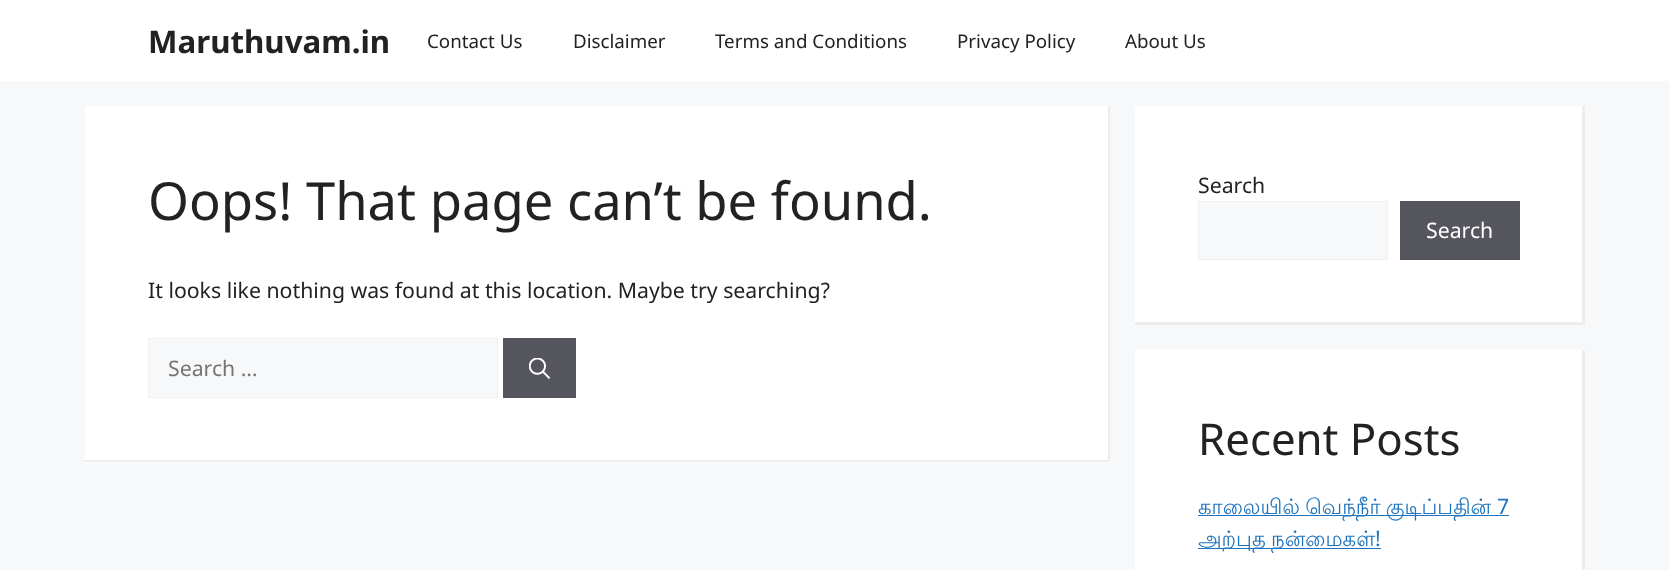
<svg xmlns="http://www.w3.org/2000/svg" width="1669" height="570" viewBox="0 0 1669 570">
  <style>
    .t1 { font: bold 31.25px Noto Sans; fill: #222; }
    .t2 { font: 18.75px Noto Sans; fill: #222; }
    .t3 { font: 52.5px Noto Sans; fill: #222; }
    .t4 { font: 21.25px Noto Sans; fill: #222; }
    .t5 { font: 21.25px Noto Sans; fill: #757575; }
    .t6 { font: 21.25px Noto Sans; fill: #fff; }
    .t7 { font: 43.75px Noto Sans; fill: #222; }
    .t8 { font: 21.25px Lohit Tamil; fill: #1e73be; }
    .t9 { font: 21.25px Noto Sans; fill: #1e73be; }
  </style>
  <rect width="100%" height="100%" fill="#f7f8f9"/>
  <rect x="0" y="0" width="1669" height="81" fill="#fff"/>
  <text x="148" y="53" class="t1">Maruthuvam.in</text>
  <text x="427" y="48" class="t2">Contact Us</text>
  <text x="573" y="48" class="t2">Disclaimer</text>
  <text x="715" y="48" class="t2">Terms and Conditions</text>
  <text x="957" y="48" class="t2">Privacy Policy</text>
  <text x="1125" y="48" class="t2">About Us</text>
  <rect x="85" y="106" width="1025" height="357" fill="#fff"/>
  <path d="M1110 106V462L1108 460V106Z" fill="#ededed"/>
  <path d="M1110 462H85V460H1108Z" fill="#00000012"/>
  <text x="148" y="220" class="t3">Oops! That page can’t be found.</text>
  <text x="148" y="298" class="t4">It looks like nothing was found at this location. Maybe try searching?</text>
  <rect x="148.5" y="338.5" width="349" height="59" fill="#f7f8f9" stroke="#f0f0f0"/>
  <text x="168" y="376" class="t5">Search …</text>
  <rect x="503" y="338" width="73" height="60" fill="#55555e"/>
  <image x="529" y="358" width="21" height="21" href="images/1.png"/>
  <rect x="1135" y="106" width="450" height="219" fill="#fff"/>
  <path d="M1585 106V325L1582 322V106Z" fill="#ededed"/>
  <path d="M1585 325H1135V322H1582Z" fill="#00000012"/>
  <text x="1198" y="193" class="t4">Search</text>
  <rect x="1198.5" y="201.5" width="189" height="58" fill="#f7f8f9" stroke="#f0f0f0"/>
  <rect x="1400" y="201" width="120" height="59" fill="#55555e"/>
  <text x="1426" y="238" class="t6">Search</text>
  <rect x="1135" y="350" width="447" height="220" fill="#fff"/>
  <path d="M1585 350V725L1582 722V350Z" fill="#ededed"/>
  <text x="1198" y="455" class="t7">Recent Posts</text>
  <rect x="1198" y="515" width="311" height="1" fill="#1e73be"/>
  <text x="1198" y="514" word-spacing="-1" class="t8">காலையில் வெந்நீர் குடிப்பதின்</text>
  <text x="1497" y="514" class="t9">7</text>
  <rect x="1198" y="548" width="183" height="1" fill="#1e73be"/>
  <text x="1198" y="546" word-spacing="-1" class="t8">அற்புத நன்மைகள்</text>
  <text x="1375" y="546" class="t9">!</text>
</svg>
